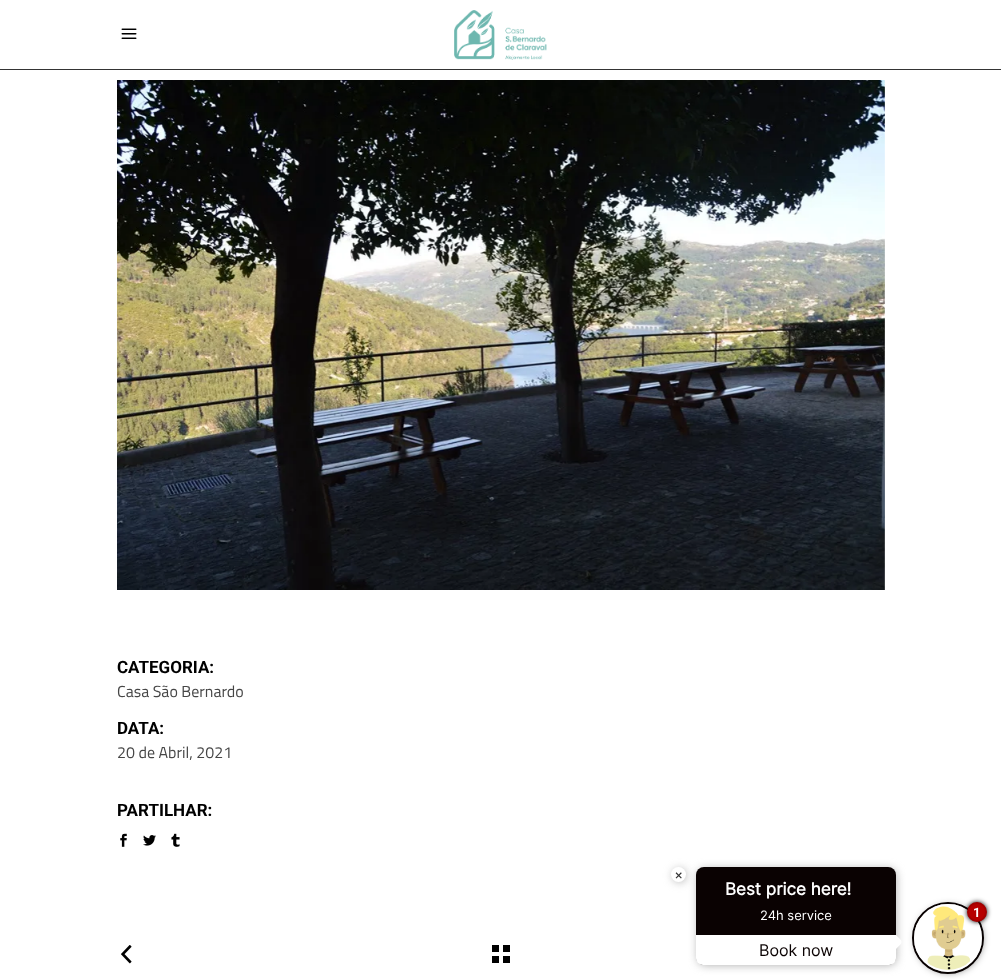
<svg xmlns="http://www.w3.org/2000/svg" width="1001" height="980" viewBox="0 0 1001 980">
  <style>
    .t1 { font: bold 17px Roboto; fill: #000; }
    .t2 { font: 16px Titillium Web; fill: #464646; }
    .t3 { font: 14px Roboto; fill: #333; }
    .t4 { font: bold 17px Inter; fill: #fff; }
    .t5 { font: 13px Inter; fill: #fff; }
    .t6 { font: 16px Inter; fill: #0a0202; }
    .t7 { font: bold 13px Roboto; fill: #fff; }
  </style>
  <rect width="100%" height="100%" fill="#fff"/>
  <rect x="0" y="69" width="1001" height="1" fill="#343434"/>
  <image x="121" y="28" width="16" height="11" href="images/1.png"/>
  <image x="454" y="10" width="93" height="50" href="images/2.png"/>
  <image x="117" y="80" width="768" height="510" href="images/3.png"/>
  <text x="117" y="673" class="t1">CATEGORIA:</text>
  <text x="117" y="697" class="t2">Casa São Bernardo</text>
  <text x="117" y="734" class="t1">DATA:</text>
  <text x="117" y="758" class="t2">20 de Abril, 2021</text>
  <text x="117" y="816" class="t1">PARTILHAR:</text>
  <image x="120" y="833" width="7" height="14" href="images/4.png"/>
  <image x="143" y="835" width="13" height="11" href="images/5.png"/>
  <image x="171" y="833" width="9" height="14" href="images/6.png"/>
  <image x="121" y="945" width="11" height="19" href="images/7.png"/>
  <rect x="492" y="945" width="7" height="7" fill="#000"/>
  <rect x="503" y="945" width="7" height="7" fill="#000"/>
  <rect x="492" y="956" width="7" height="7" fill="#000"/>
  <rect x="503" y="956" width="7" height="7" fill="#000"/>
  <circle cx="948" cy="938" r="35" fill="none" stroke="#0a0202" stroke-width="2"/>
  <rect x="918" y="908" width="62" height="62" rx="31" fill="#000" filter="blur(5px)"/>
  <circle cx="948" cy="938" r="33" fill="#fff" stroke="#fff" stroke-width="2"/>
  <rect x="698" y="869" width="198" height="96" rx="7" fill="#aaa" filter="blur(5px)"/>
  <rect x="696" y="867" width="200" height="98" rx="8" fill="#0a0202"/>
  <rect x="673" y="869" width="13" height="13" rx="6.5" fill="#aaa" filter="blur(5px)"/>
  <circle cx="678.5" cy="874.5" r="7.5" fill="#fff"/>
  <text x="675" y="880" class="t3">×</text>
  <text x="725" y="895" class="t4">Best price here!</text>
  <text x="760" y="920" class="t5">24h service</text>
  <path d="M696 935H896V958C896 962 893 965 889 965H703C699 965 696 962 696 958Z" fill="#fff"/>
  <path d="M896 935C903.5 942.5 903.5 941.5 896 949L889 942Z" fill="#fff"/>
  <text x="759" y="956" class="t6">Book now</text>
  <image x="927" y="906" width="43" height="64" href="images/8.png"/>
  <rect x="967" y="902" width="20" height="20" rx="10" fill="#000" filter="blur(2.5px)"/>
  <circle cx="977" cy="912" r="9" fill="#b60000" stroke="#a30000" stroke-width="2"/>
  <text x="973" y="917" class="t7">1</text>
</svg>
